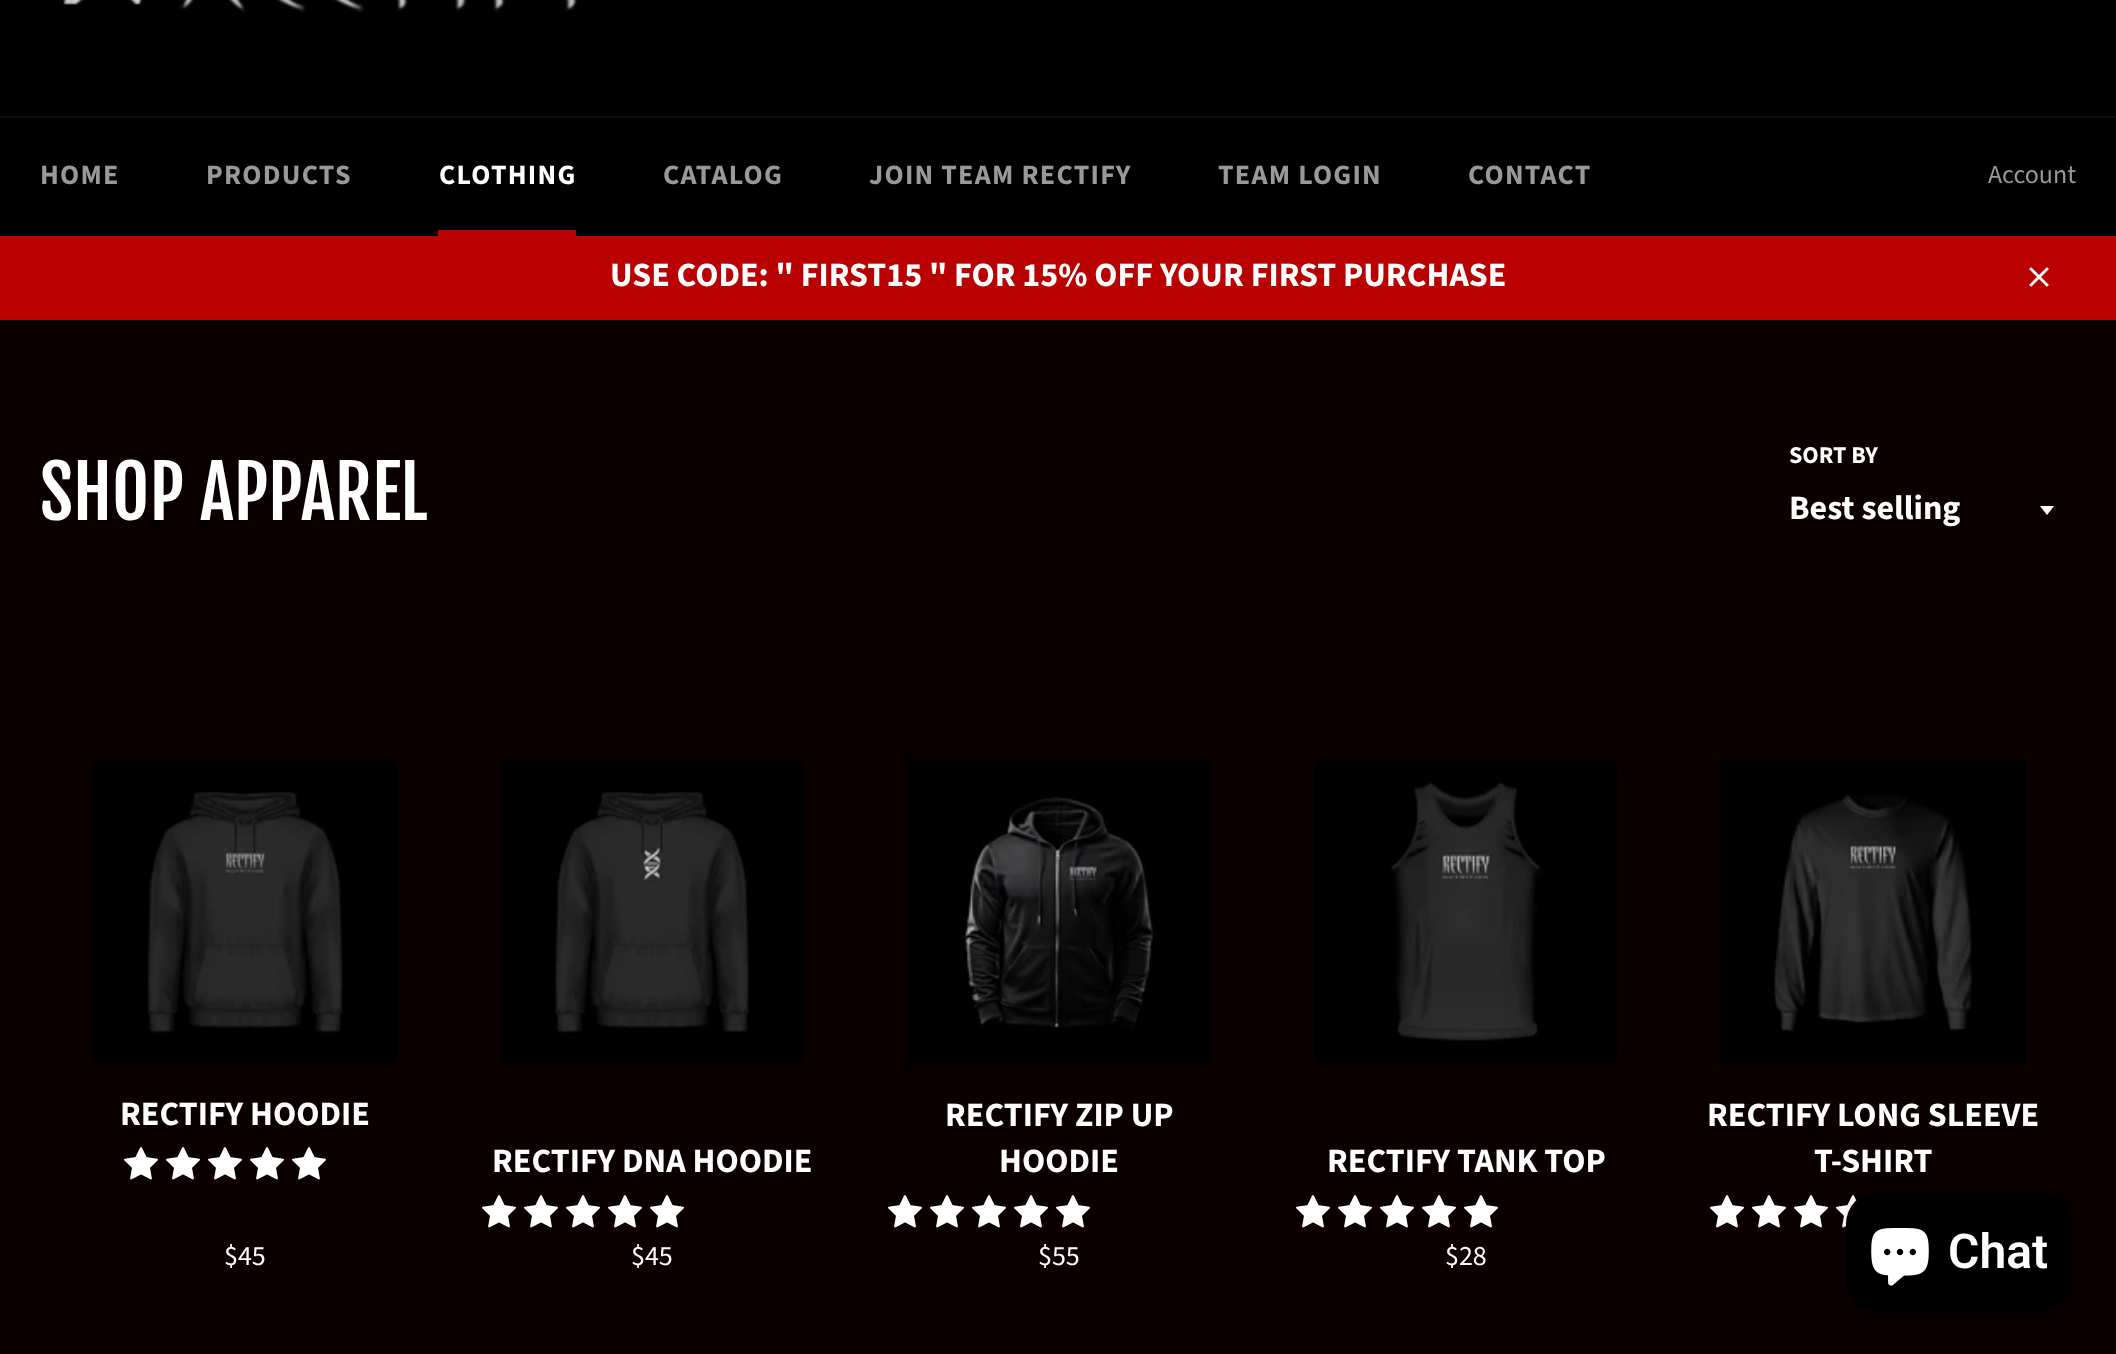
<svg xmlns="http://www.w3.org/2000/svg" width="2116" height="1354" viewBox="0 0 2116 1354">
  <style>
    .t1 { font: bold 28px Source Sans Pro; letter-spacing: 1.25px; fill: #999; }
    .t2 { font: bold 28px Source Sans Pro; letter-spacing: 1.25px; fill: #fff; }
    .t3 { font: 26px Source Sans Pro; fill: #999; }
    .t4 { font: bold 34px Source Sans Pro; fill: #fff; }
    .t5 { font: 72px Fjalla One; fill: #fff; }
    .t6 { font: bold 24px Source Sans Pro; fill: #fff; }
    .t7 { font: 28px Source Sans Pro; fill: #fff; }
    .t8 { font: 600 48px Roboto; fill: #fff; }
  </style>
  <rect width="100%" height="100%" fill="#0a0000"/>
  <rect x="0" y="0" width="2116" height="116" fill="#000"/>
  <image x="63" y="0" width="514" height="13" href="images/1.png"/>
  <rect x="0" y="118" width="2116" height="118" fill="#000"/>
  <rect x="0" y="116" width="2116" height="2" fill="#0d0d0d"/>
  <text x="40" y="184" class="t1">HOME</text>
  <text x="206" y="184" class="t1">PRODUCTS</text>
  <text x="439" y="184" class="t2">CLOTHING</text>
  <rect x="438" y="230" width="138" height="6" fill="#ba0101"/>
  <text x="663" y="184" class="t1">CATALOG</text>
  <text x="869" y="184" class="t1">JOIN TEAM RECTIFY</text>
  <text x="1218" y="184" class="t1">TEAM LOGIN</text>
  <text x="1468" y="184" class="t1">CONTACT</text>
  <text x="1988" y="183" class="t3">Account</text>
  <rect x="0" y="236" width="2116" height="84" fill="#ba0101"/>
  <text x="610" y="286" class="t4">USE CODE: " FIRST15 " FOR 15% OFF YOUR FIRST PURCHASE</text>
  <image x="2029" y="267" width="20" height="20" href="images/2.png"/>
  <text x="40" y="520" class="t5">SHOP APPAREL</text>
  <text x="1789" y="463" class="t6">SORT BY</text>
  <path d="M2040 506L2047 515L2054 506Z" fill="#fff"/>
  <text x="1789" y="519" class="t4">Best selling</text>
  <image x="92" y="760" width="306" height="304" href="images/3.png"/>
  <text x="120" y="1125" class="t4">RECTIFY HOODIE</text>
  <image x="124" y="1147" width="34" height="33" href="images/4.png"/>
  <image x="166" y="1147" width="34" height="33" href="images/4.png"/>
  <image x="208" y="1147" width="34" height="33" href="images/4.png"/>
  <image x="250" y="1147" width="34" height="33" href="images/4.png"/>
  <image x="292" y="1147" width="34" height="33" href="images/4.png"/>
  <text x="224" y="1265" class="t7">$45</text>
  <image x="906" y="760" width="306" height="304" href="images/5.png"/>
  <text x="945" y="1126" class="t4">RECTIFY ZIP UP</text>
  <text x="999" y="1172" class="t4">HOODIE</text>
  <image x="888" y="1195" width="34" height="33" href="images/4.png"/>
  <image x="930" y="1195" width="34" height="33" href="images/4.png"/>
  <image x="972" y="1195" width="34" height="33" href="images/4.png"/>
  <image x="1014" y="1195" width="34" height="33" href="images/4.png"/>
  <image x="1056" y="1195" width="34" height="33" href="images/4.png"/>
  <text x="1038" y="1265" class="t7">$55</text>
  <image x="1720" y="760" width="306" height="304" href="images/6.png"/>
  <text x="1707" y="1126" class="t4">RECTIFY LONG SLEEVE</text>
  <text x="1814" y="1172" class="t4">T-SHIRT</text>
  <image x="1710" y="1195" width="34" height="33" href="images/4.png"/>
  <image x="1752" y="1195" width="34" height="33" href="images/4.png"/>
  <image x="1794" y="1195" width="34" height="33" href="images/4.png"/>
  <image x="1836" y="1195" width="21" height="33" href="images/7.png"/>
  <image x="500" y="760" width="304" height="304" href="images/8.png"/>
  <text x="492" y="1172" class="t4">RECTIFY DNA HOODIE</text>
  <image x="482" y="1195" width="34" height="33" href="images/4.png"/>
  <image x="524" y="1195" width="34" height="33" href="images/4.png"/>
  <image x="566" y="1195" width="34" height="33" href="images/4.png"/>
  <image x="608" y="1195" width="34" height="33" href="images/4.png"/>
  <image x="650" y="1195" width="34" height="33" href="images/4.png"/>
  <text x="631" y="1265" class="t7">$45</text>
  <image x="1314" y="760" width="304" height="304" href="images/9.png"/>
  <text x="1327" y="1172" class="t4">RECTIFY TANK TOP</text>
  <image x="1296" y="1195" width="34" height="33" href="images/4.png"/>
  <image x="1338" y="1195" width="34" height="33" href="images/4.png"/>
  <image x="1380" y="1195" width="34" height="33" href="images/4.png"/>
  <image x="1422" y="1195" width="34" height="33" href="images/4.png"/>
  <image x="1464" y="1195" width="34" height="33" href="images/4.png"/>
  <text x="1445" y="1265" class="t7">$28</text>
  <rect x="1846" y="1192" width="226" height="120" rx="32" fill="#00000026" filter="blur(5px)"/>
  <rect x="1846" y="1192" width="226" height="120" rx="32" fill="#000"/>
  <image x="1871" y="1228" width="58" height="58" href="images/10.png"/>
  <text x="1948" y="1268" class="t8">Chat</text>
</svg>
